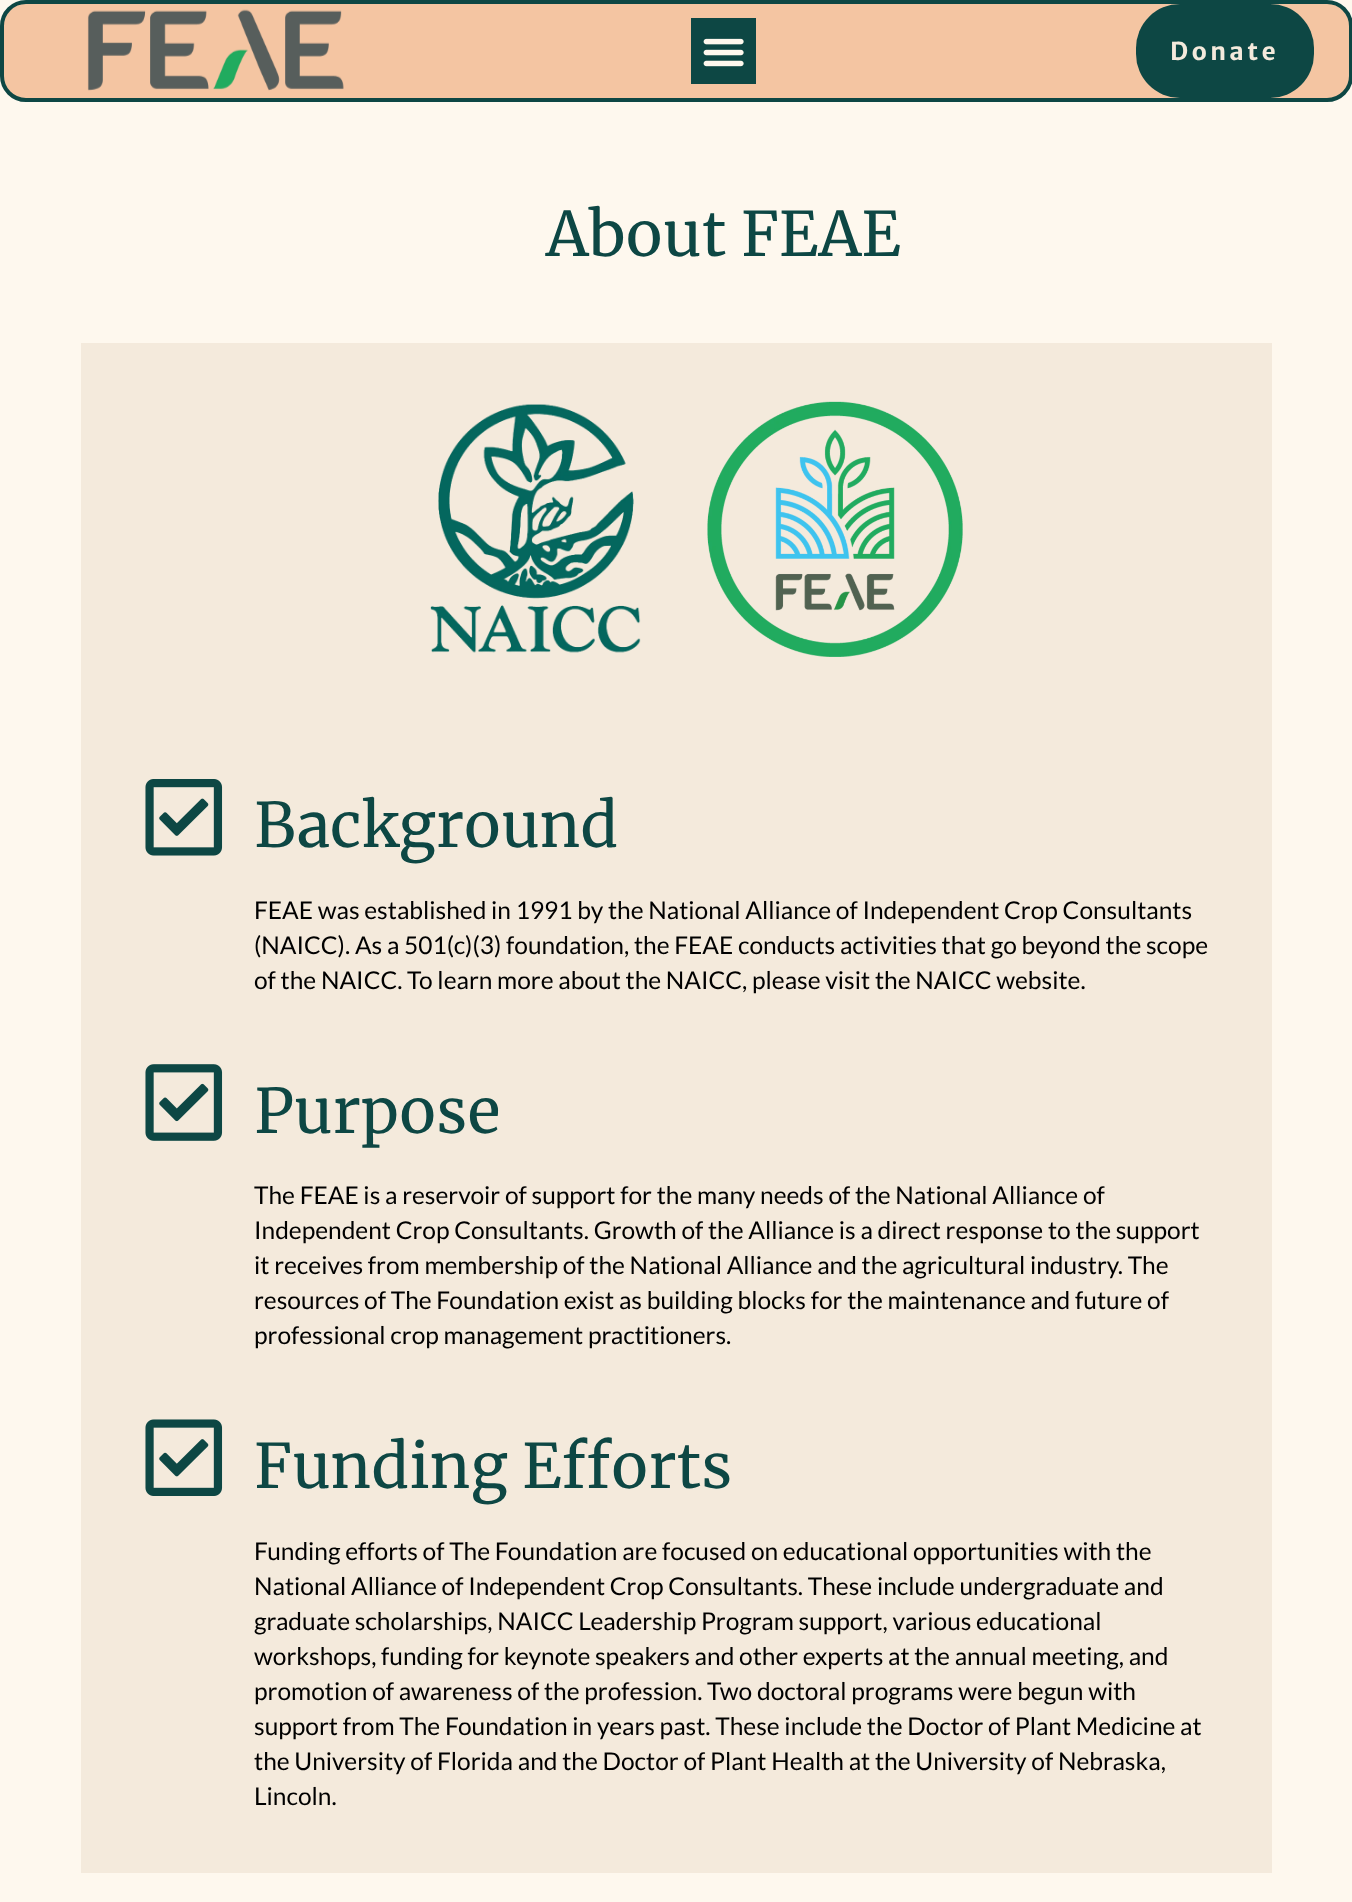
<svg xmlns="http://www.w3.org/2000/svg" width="1352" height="1902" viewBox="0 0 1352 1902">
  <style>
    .t1 { font: bold 24.5px Merriweather Sans; letter-spacing: 3.5px; fill: #f4eadc; }
    .t2 { font: 61.25px Merriweather; fill: #0d4744; }
    .t3 { font: 24.5px Lato; fill: #000; }
  </style>
  <rect width="100%" height="100%" fill="#fef8ee"/>
  <rect x="2" y="2" width="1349" height="98" rx="24" fill="#f4c5a2" stroke="#0d4744" stroke-width="4"/>
  <image x="87" y="9" width="257" height="82" href="images/1.png"/>
  <rect x="691" y="18" width="65" height="66" fill="#0d4744"/>
  <image x="703" y="38" width="41" height="29" href="images/2.png"/>
  <rect x="1136" y="4" width="178" height="94" rx="44" fill="#0d4744"/>
  <text x="1170" y="60" class="t1">Donate</text>
  <text x="546" y="256" class="t2">About FEAE</text>
  <rect x="81" y="343" width="1191" height="1530" fill="#f4eadc"/>
  <image x="430" y="404" width="211" height="249" href="images/3.png"/>
  <image x="707" y="401" width="256" height="256" href="images/4.png"/>
  <image x="145" y="779" width="78" height="77" href="images/5.png"/>
  <text x="254" y="847" class="t2">Background</text>
  <text x="254" y="919" class="t3">FEAE was established in 1991 by the National Alliance of Independent Crop Consultants</text>
  <text x="254" y="954" class="t3">(NAICC). As a 501(c)(3) foundation, the FEAE conducts activities that go beyond the scope</text>
  <text x="254" y="989" class="t3">of the NAICC. To learn more about the NAICC, please visit the NAICC website.</text>
  <image x="145" y="1064" width="78" height="77" href="images/6.png"/>
  <text x="254" y="1133" class="t2">Purpose</text>
  <text x="254" y="1204" class="t3">The FEAE is a reservoir of support for the many needs of the National Alliance of</text>
  <text x="254" y="1239" class="t3">Independent Crop Consultants. Growth of the Alliance is a direct response to the support</text>
  <text x="254" y="1274" class="t3">it receives from membership of the National Alliance and the agricultural industry. The</text>
  <text x="254" y="1309" class="t3">resources of The Foundation exist as building blocks for the maintenance and future of</text>
  <text x="254" y="1344" class="t3">professional crop management practitioners.</text>
  <image x="145" y="1419" width="78" height="77" href="images/7.png"/>
  <text x="254" y="1488" class="t2">Funding Efforts</text>
  <text x="254" y="1560" class="t3">Funding efforts of The Foundation are focused on educational opportunities with the</text>
  <text x="254" y="1595" class="t3">National Alliance of Independent Crop Consultants. These include undergraduate and</text>
  <text x="254" y="1630" class="t3">graduate scholarships, NAICC Leadership Program support, various educational</text>
  <text x="254" y="1665" class="t3">workshops, funding for keynote speakers and other experts at the annual meeting, and</text>
  <text x="254" y="1700" class="t3">promotion of awareness of the profession. Two doctoral programs were begun with</text>
  <text x="254" y="1735" class="t3">support from The Foundation in years past. These include the Doctor of Plant Medicine at</text>
  <text x="254" y="1770" class="t3">the University of Florida and the Doctor of Plant Health at the University of Nebraska,</text>
  <text x="254" y="1805" class="t3">Lincoln.</text>
</svg>
